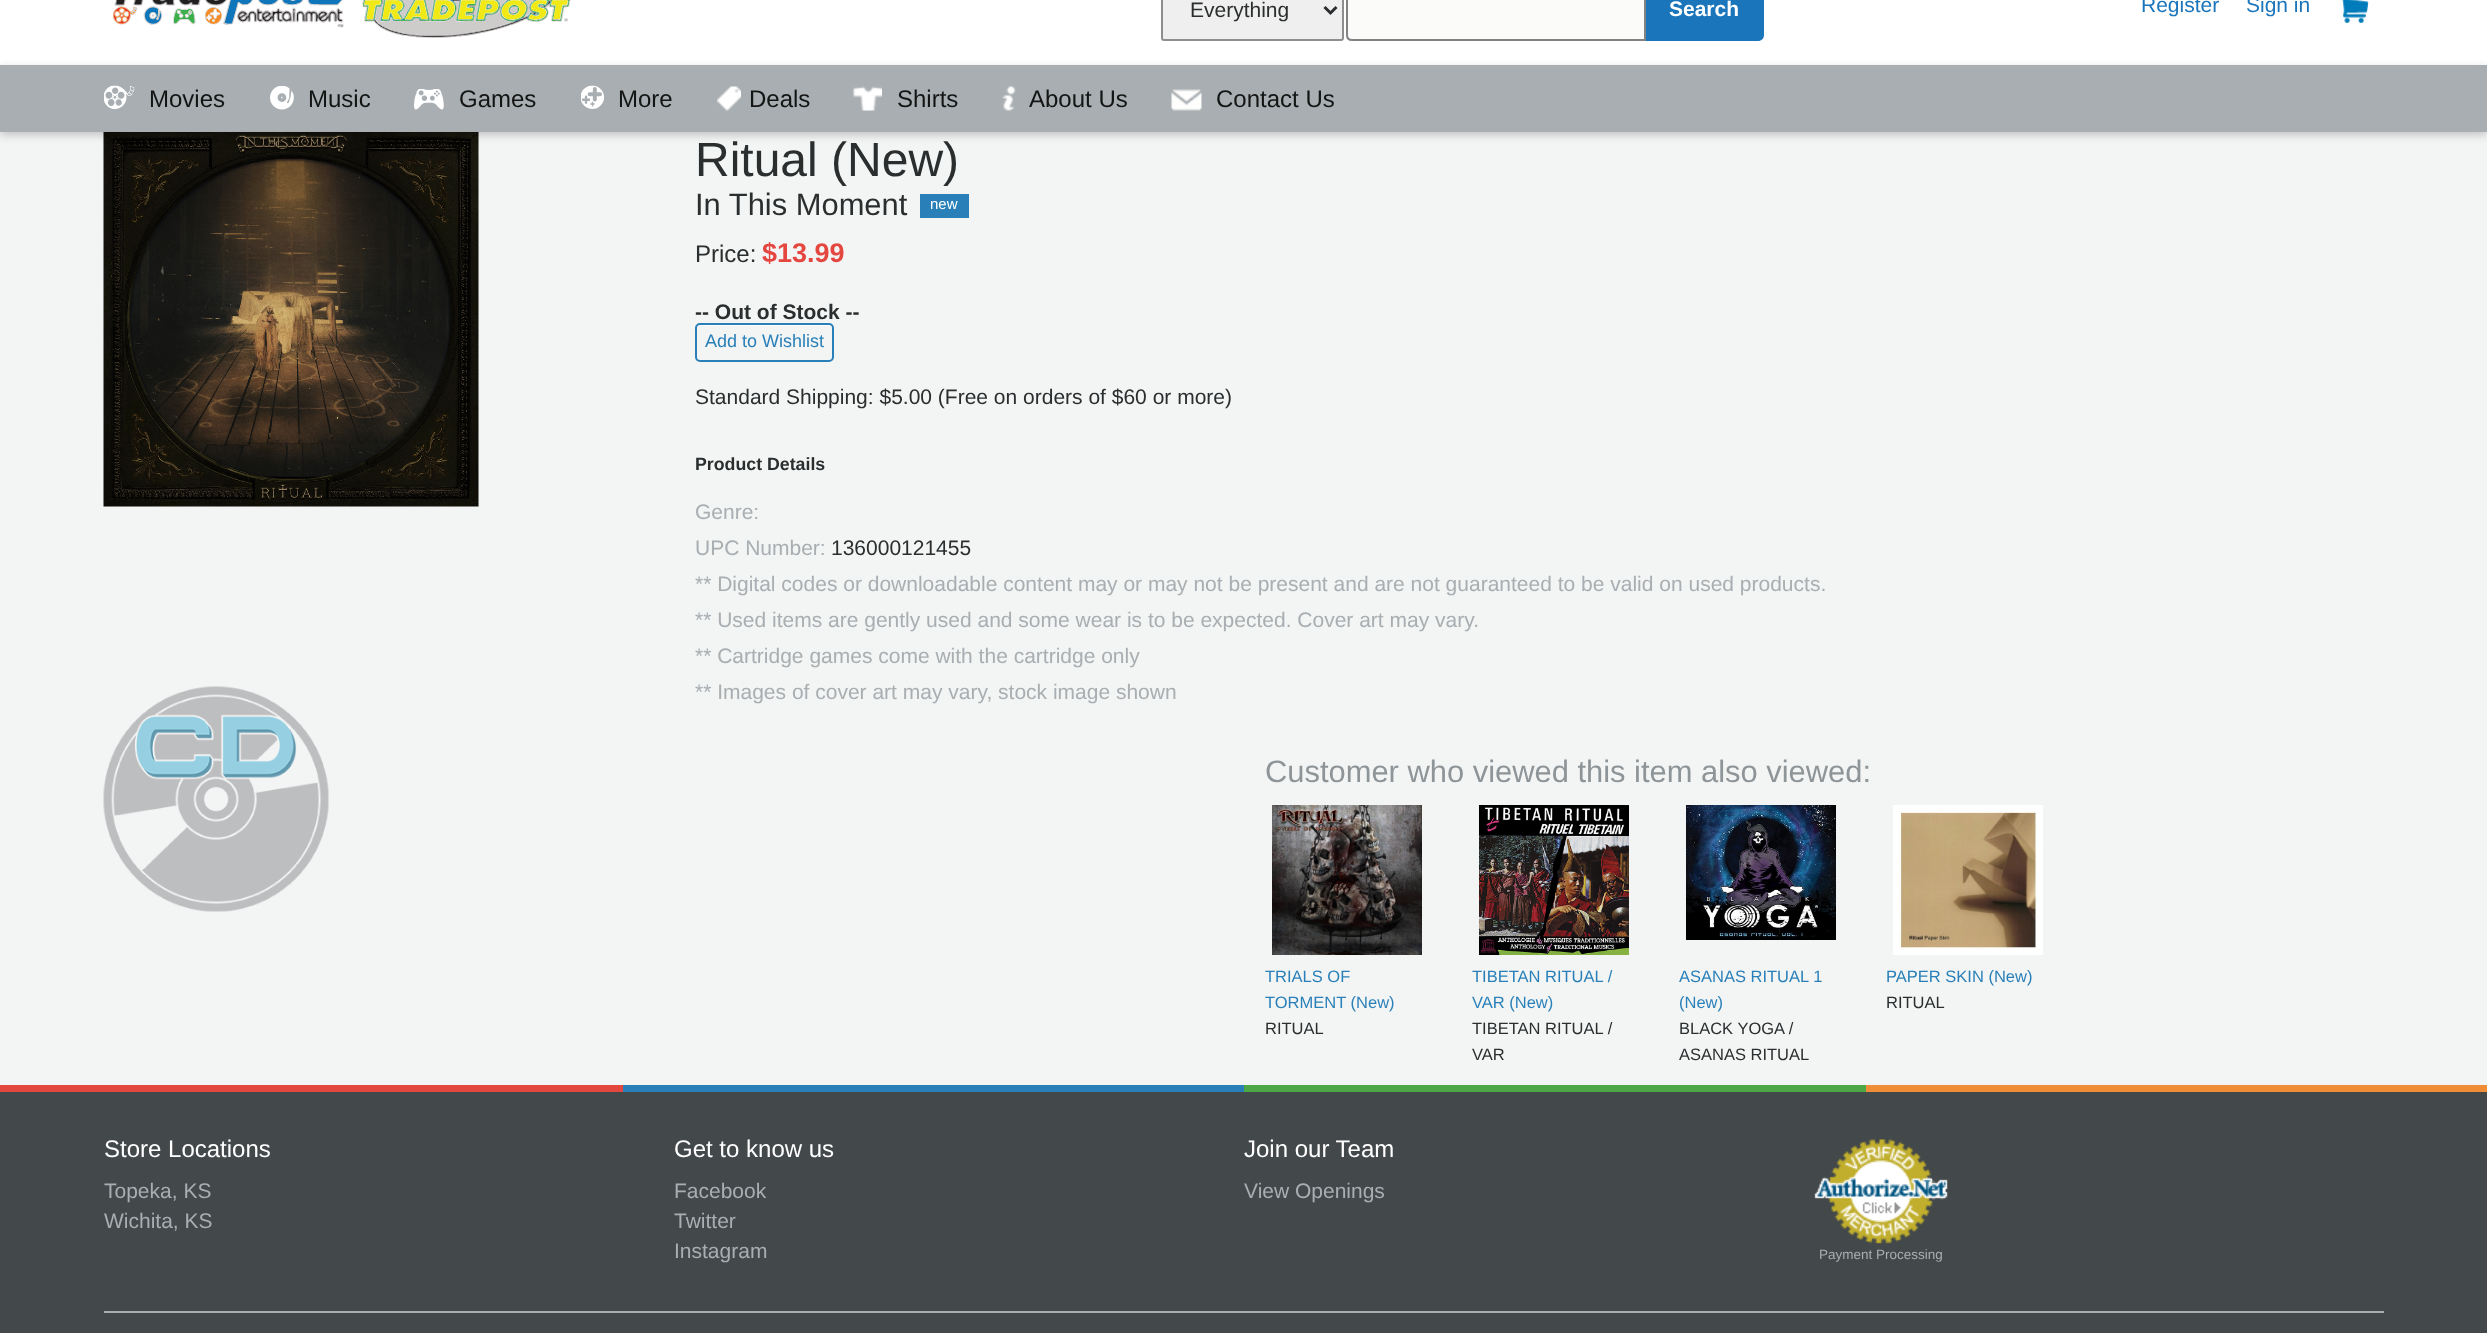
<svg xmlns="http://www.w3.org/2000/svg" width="2487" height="1333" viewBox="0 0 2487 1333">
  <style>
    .t1 { font: 21px Liberation Sans; fill: #2b2e2f; }
    .t2 { font: bold 21px Liberation Sans; fill: #fff; }
    .t3 { font: 21px Liberation Sans; fill: #1b75bb; }
    .t4 { font: 24px Liberation Sans; fill: #131414; }
    .t5 { font: 48px Liberation Sans; fill: #2b2e2f; }
    .t6 { font: 30.9px Liberation Sans; fill: #2b2e2f; }
    .t7 { font: 15px Liberation Sans; fill: #fff; }
    .t8 { font: 24px Liberation Sans; fill: #2b2e2f; }
    .t9 { font: bold 27px Liberation Sans; fill: #e44640; }
    .t10 { font: bold 21px Liberation Sans; fill: #2b2e2f; }
    .t11 { font: 18px Liberation Sans; fill: #2980b9; }
    .t12 { font: bold 17.75px Liberation Sans; fill: #2b2e2f; }
    .t13 { font: 21px Liberation Sans; fill: #a8aeb1; }
    .t14 { font: 30.9px Liberation Sans; fill: #8e9598; }
    .t15 { font: 16.5px Liberation Sans; fill: #2980b9; }
    .t16 { font: 16.5px Liberation Sans; fill: #2b2e2f; }
    .t17 { font: 24px Liberation Sans; fill: #fff; }
    .t18 { font: 13.5px Liberation Sans; fill: #a8aeb1; }
  </style>
  <rect width="100%" height="100%" fill="#f3f4f4"/>
  <rect x="0" y="0" width="2487" height="65" fill="#fff"/>
  <image x="112" y="0" width="459" height="38" href="images/1.png"/>
  <rect x="1162" y="-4" width="181" height="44" rx="2" fill="#efefef" stroke="#8e8e8e" stroke-width="2"/>
  <path d="M1324.5 7L1330.5 13L1336.5 7" fill="none" stroke="#2b2e2f" stroke-width="3"/>
  <text x="1190" y="17" class="t1">Everything</text>
  <path d="M1352-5H1644V39H1352C1349 39 1347 37 1347 34V0C1347-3 1349-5 1352-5Z" fill="#fbfbfa"/>
  <path d="M1352-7H1645V40H1352C1349 40 1347 38 1347 35V-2C1347-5 1349-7 1352-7Z" fill="none" stroke="#828282" stroke-width="2"/>
  <path d="M1646-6H1758C1761.5-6 1764-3.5 1764 0V35C1764 38.5 1761.5 41 1758 41H1646Z" fill="#1b75bb"/>
  <text x="1669" y="16" class="t2">Search</text>
  <text x="2141" y="12" class="t3">Register</text>
  <text x="2246" y="12" class="t3">Sign in</text>
  <image x="2342" y="0" width="27" height="23" href="images/2.png"/>
  <image x="103" y="132" width="376" height="375" href="images/11.png"/>
  <rect x="0" y="68" width="2487" height="67" fill="#00000033" filter="blur(4px)"/>
  <rect x="0" y="65" width="2487" height="67" fill="#a8aeb1"/>
  <image x="104" y="85" width="31" height="24" href="images/3.png"/>
  <text x="149" y="107" class="t4">Movies</text>
  <image x="270" y="86" width="24" height="24" href="images/4.png"/>
  <text x="308" y="107" class="t4">Music</text>
  <image x="414" y="89" width="30" height="21" href="images/5.png"/>
  <text x="459" y="107" class="t4">Games</text>
  <image x="581" y="85" width="23" height="24" href="images/6.png"/>
  <text x="618" y="107" class="t4">More</text>
  <image x="717" y="86" width="24" height="25" href="images/7.png"/>
  <text x="749" y="107" class="t4">Deals</text>
  <image x="853" y="86" width="29" height="25" href="images/8.png"/>
  <text x="897" y="107" class="t4">Shirts</text>
  <image x="1002" y="86" width="14" height="25" href="images/9.png"/>
  <text x="1029" y="107" class="t4">About Us</text>
  <image x="1171" y="89" width="31" height="22" href="images/10.png"/>
  <text x="1216" y="107" class="t4">Contact Us</text>
  <image x="103" y="686" width="226" height="226" href="images/12.png"/>
  <text x="695" y="176" class="t5">Ritual (New)</text>
  <text x="695" y="215" class="t6">In This Moment</text>
  <rect x="920" y="194" width="49" height="24" fill="#2980b9"/>
  <text x="930" y="209" class="t7">new</text>
  <text x="695" y="262" class="t8">Price:</text>
  <text x="762" y="262" class="t9">$13.99</text>
  <text x="695" y="319" class="t10">-- Out of Stock --</text>
  <path d="M699 326H830C831 326 832 327 832 328V359C833 359 833 358 833 357V327C833 325 832 324 830 324H699C697 324 696 325 696 327V328C696 327 697 326 699 326Z" fill="#fefefe"/>
  <rect x="696" y="324" width="137" height="37" rx="4" fill="none" stroke="#2980b9" stroke-width="2"/>
  <text x="705" y="347" class="t11">Add to Wishlist</text>
  <text x="695" y="404" class="t1">Standard Shipping: $5.00 (Free on orders of $60 or more)</text>
  <text x="695" y="470" class="t12">Product Details</text>
  <text x="695" y="519" class="t13">Genre:</text>
  <text x="695" y="555" class="t13">UPC Number:</text>
  <text x="831" y="555" class="t1">136000121455</text>
  <text x="695" y="591" class="t13">** Digital codes or downloadable content may or may not be present and are not guaranteed to be valid on used products.</text>
  <text x="695" y="627" class="t13">** Used items are gently used and some wear is to be expected. Cover art may vary.</text>
  <text x="695" y="663" class="t13">** Cartridge games come with the cartridge only</text>
  <text x="695" y="699" class="t13">** Images of cover art may vary, stock image shown</text>
  <text x="1265" y="782" class="t14">Customer who viewed this item also viewed:</text>
  <image x="1272" y="805" width="150" height="150" href="images/13.png"/>
  <text x="1265" y="982" class="t15">TRIALS OF</text>
  <text x="1265" y="1008" class="t15">TORMENT (New)</text>
  <text x="1265" y="1034" class="t16">RITUAL</text>
  <image x="1479" y="805" width="150" height="150" href="images/14.png"/>
  <text x="1472" y="982" class="t15">TIBETAN RITUAL /</text>
  <text x="1472" y="1008" class="t15">VAR (New)</text>
  <text x="1472" y="1034" class="t16">TIBETAN RITUAL /</text>
  <text x="1472" y="1060" class="t16">VAR</text>
  <image x="1686" y="805" width="150" height="135" href="images/15.png"/>
  <text x="1679" y="982" class="t15">ASANAS RITUAL 1</text>
  <text x="1679" y="1008" class="t15">(New)</text>
  <text x="1679" y="1034" class="t16">BLACK YOGA /</text>
  <text x="1679" y="1060" class="t16">ASANAS RITUAL</text>
  <image x="1893" y="805" width="150" height="150" href="images/16.png"/>
  <text x="1886" y="982" class="t15">PAPER SKIN (New)</text>
  <text x="1886" y="1008" class="t16">RITUAL</text>
  <rect x="0" y="1092" width="2487" height="241" fill="#43484a"/>
  <rect x="0" y="1085" width="623" height="7" fill="#e44640"/>
  <rect x="623" y="1085" width="621" height="7" fill="#2980b9"/>
  <rect x="1244" y="1085" width="622" height="7" fill="#4da745"/>
  <rect x="1866" y="1085" width="621" height="7" fill="#f08d39"/>
  <text x="104" y="1157" class="t17">Store Locations</text>
  <text x="104" y="1198" class="t13">Topeka, KS</text>
  <text x="104" y="1228" class="t13">Wichita, KS</text>
  <text x="674" y="1157" class="t17">Get to know us</text>
  <text x="674" y="1198" class="t13">Facebook</text>
  <text x="674" y="1228" class="t13">Twitter</text>
  <text x="674" y="1258" class="t13">Instagram</text>
  <text x="1244" y="1157" class="t17">Join our Team</text>
  <text x="1244" y="1198" class="t13">View Openings</text>
  <image x="1814" y="1139" width="134" height="105" href="images/17.png"/>
  <text x="1819" y="1259" class="t18">Payment Processing</text>
  <rect x="104" y="1311" width="2280" height="2" fill="#a8aeb1"/>
</svg>
